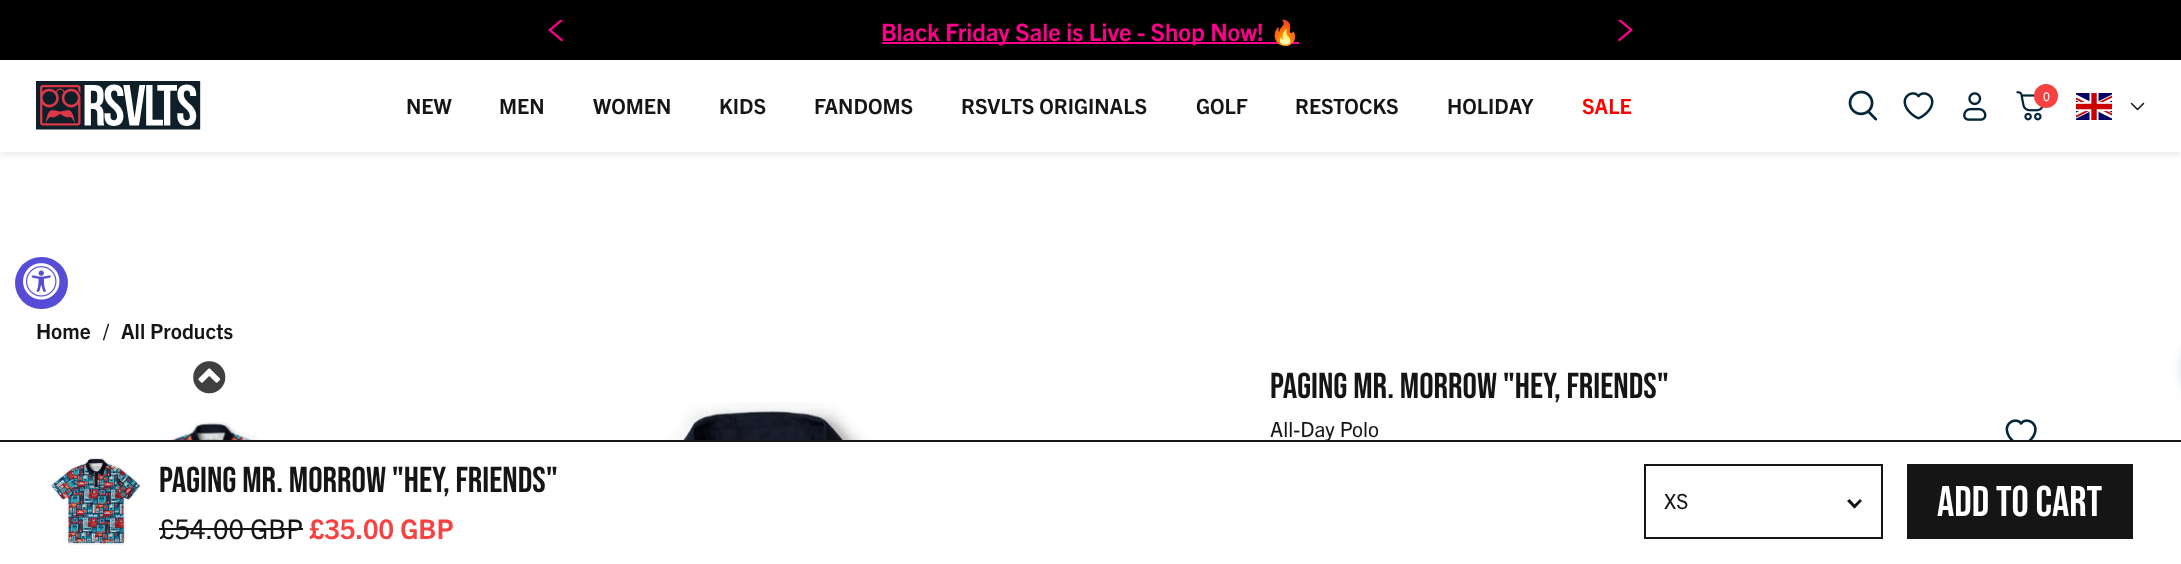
<svg xmlns="http://www.w3.org/2000/svg" width="2181" height="564" viewBox="0 0 2181 564">
  <style>
    .t1 { font: bold 24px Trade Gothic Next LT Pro; fill: #ff008c; }
    .t2 { font: bold 24px Noto Color Emoji; fill: #ff008c; }
    .t3 { font: 12px Trade Gothic Next LT Pro; fill: #fff; }
    .t4 { font: bold 21px Trade Gothic Next LT Pro; fill: #161515; }
    .t5 { font: bold 21px Trade Gothic Next LT Pro; fill: #f00; }
    .t6 { font: 36px Bebas Neue; fill: #161515; }
    .t7 { font: 21px Trade Gothic Next LT Pro; fill: #161515; }
    .t8 { font: 27px Trade Gothic Next LT Pro; fill: #161515; }
    .t9 { font: bold 27px Trade Gothic Next LT Pro; fill: #f84141; }
    .t10 { font: 43px Bebas Neue; fill: #fff; }
  </style>
  <defs>
    <clipPath id="clip1"><path d="M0 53H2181V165H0ZM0 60H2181V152H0Z" clip-rule="evenodd"/></clipPath>
  </defs>
  <rect width="100%" height="100%" fill="#fff"/>
  <rect x="0" y="0" width="2181" height="60" fill="#000"/>
  <image x="548" y="20" width="15" height="22" href="images/1.png"/>
  <rect x="882" y="42" width="417" height="2" fill="#ff008c"/>
  <text x="881" y="41" class="t1">Black Friday Sale is Live - Shop Now!</text>
  <text x="1270" y="41" class="t2">🔥</text>
  <image x="1618" y="20" width="15" height="22" href="images/2.png"/>
  <g clip-path="url(#clip1)">
    <rect x="0" y="63" width="2181" height="92" fill="#00000014" filter="blur(3px)"/>
  </g>
  <image x="36" y="81" width="165" height="49" href="images/3.png"/>
  <image x="1848" y="90" width="30" height="31" href="images/4.png"/>
  <image x="1903" y="92" width="31" height="28" href="images/5.png"/>
  <image x="1963" y="92" width="24" height="29" href="images/6.png"/>
  <image x="2016" y="91" width="28" height="30" href="images/7.png"/>
  <circle cx="2046" cy="96" r="12" fill="#f84141"/>
  <text x="2043" y="101" class="t3">0</text>
  <image x="2076" y="93" width="36" height="27" href="images/8.png"/>
  <image x="2130" y="102" width="15" height="9" href="images/9.png"/>
  <text x="406" y="114" class="t4">NEW</text>
  <text x="499" y="114" class="t4">MEN</text>
  <text x="593" y="114" class="t4">WOMEN</text>
  <text x="719" y="114" class="t4">KIDS</text>
  <text x="814" y="114" class="t4">FANDOMS</text>
  <text x="961" y="114" class="t4">RSVLTS ORIGINALS</text>
  <text x="1196" y="114" class="t4">GOLF</text>
  <text x="1295" y="114" class="t4">RESTOCKS</text>
  <text x="1447" y="114" class="t4">HOLIDAY</text>
  <text x="1582" y="114" class="t5">SALE</text>
  <rect x="15" y="257" width="53" height="52" rx="26" fill="#574cd5"/>
  <image x="23" y="263" width="37" height="37" href="images/10.png"/>
  <text x="36" y="339" class="t4">Home</text>
  <text x="103" y="339" class="t4">/</text>
  <text x="121" y="339" class="t4">All Products</text>
  <image x="193" y="361" width="33" height="33" href="images/11.png"/>
  <image x="121" y="422" width="180" height="18" href="images/12.png"/>
  <image x="449" y="402" width="634" height="38" href="images/13.png"/>
  <text x="1270" y="398" class="t6">PAGING MR. MORROW "HEY, FRIENDS"</text>
  <text x="1270" y="437" class="t7">All-Day Polo</text>
  <image x="2005" y="419" width="32" height="21" href="images/14.png"/>
  <rect x="0" y="440" width="2181" height="2" fill="#161515"/>
  <image x="51" y="458" width="89" height="87" href="images/15.png"/>
  <text x="159" y="492" class="t6">PAGING MR. MORROW "HEY, FRIENDS"</text>
  <text x="159" y="539" class="t8">£54.00 GBP</text>
  <rect x="159" y="528" width="144" height="2" fill="#161515"/>
  <text x="309" y="539" class="t9">£35.00 GBP</text>
  <rect x="1645" y="465" width="237" height="73" fill="none" stroke="#161515" stroke-width="2"/>
  <text x="1664" y="509" class="t7">XS</text>
  <path d="M1860 499L1862 501L1854.5 508.5L1852.5 506.5Z" fill="#161515"/>
  <path d="M1849.5 499L1856.5 506.5L1854.5 508.5L1847 501Z" fill="#161515"/>
  <rect x="1907" y="464" width="226" height="75" fill="#161515"/>
  <text x="1937" y="516" class="t10">ADD TO CART</text>
  <rect x="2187" y="339" width="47" height="60" rx="30" fill="#2b516980" filter="blur(7.5px)"/>
</svg>
